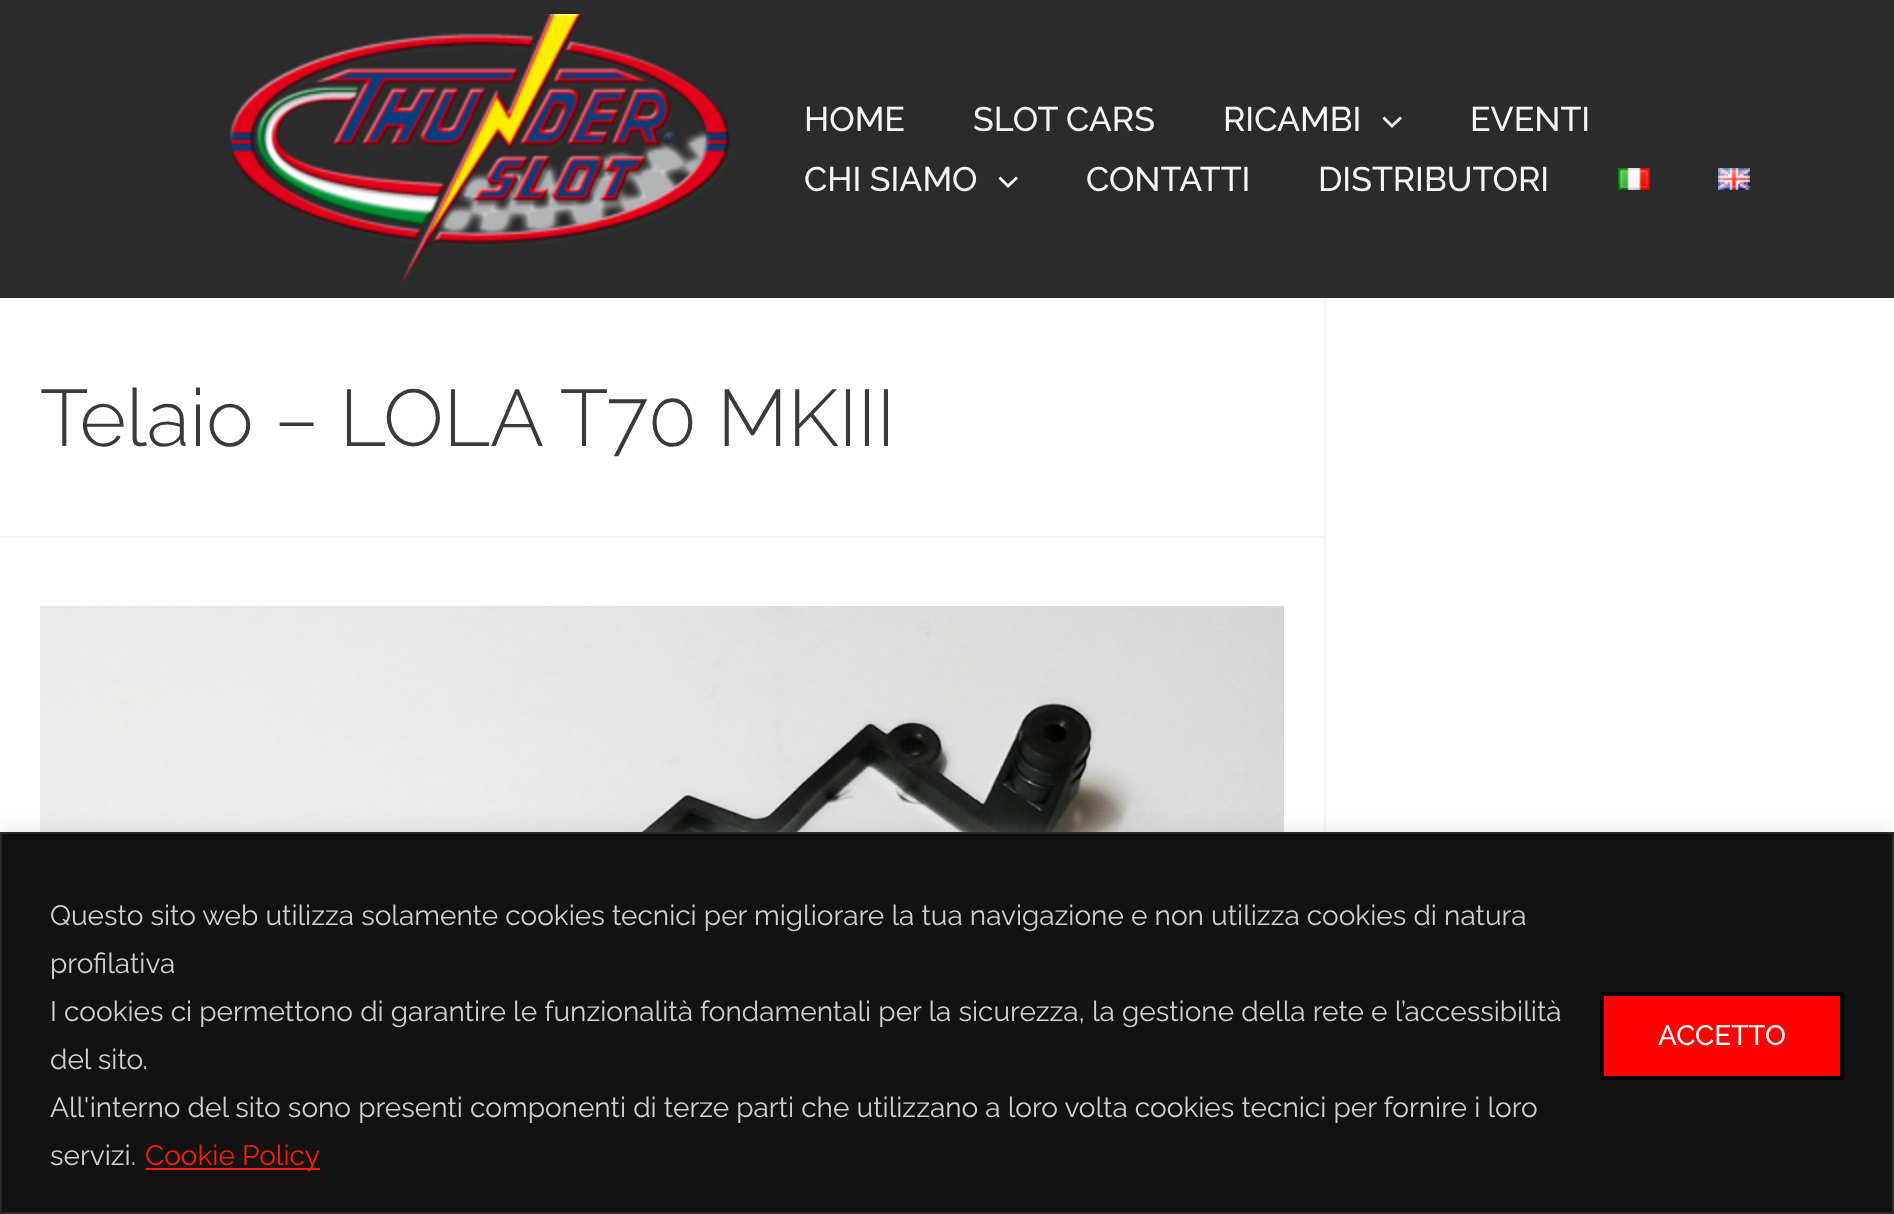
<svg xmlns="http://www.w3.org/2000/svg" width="1894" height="1214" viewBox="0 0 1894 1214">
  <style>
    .t1 { font: 500 34px Raleway; fill: #f5f5f5; }
    .t2 { font: 300 80px Raleway; fill: #3a3a3a; }
    .t3 { font: 28px Raleway; fill: #d0d0d0; }
    .t4 { font: 28px Raleway; fill: #ff1e00; }
    .t5 { font: 500 28px Raleway; fill: #fff; }
  </style>
  <rect width="100%" height="100%" fill="#fff"/>
  <rect x="0" y="0" width="1894" height="298" fill="#2b2b2b"/>
  <image x="230" y="14" width="500" height="270" href="images/1.png"/>
  <text x="804" y="131" class="t1">HOME</text>
  <text x="973" y="131" class="t1">SLOT CARS</text>
  <text x="1223" y="131" class="t1">RICAMBI</text>
  <path d="M1382.5 118.5L1392 128L1402 118.5L1400 116.5L1392 124L1384.5 116.5Z" fill="#f5f5f5"/>
  <text x="1470" y="131" class="t1">EVENTI</text>
  <text x="804" y="191" class="t1">CHI SIAMO</text>
  <path d="M998.5 178.5L1008 188L1018 178.5L1016 176.5L1008 184L1000.5 176.5Z" fill="#f5f5f5"/>
  <text x="1086" y="191" class="t1">CONTATTI</text>
  <text x="1318" y="191" class="t1">DISTRIBUTORI</text>
  <image x="1618" y="168" width="32" height="22" href="images/2.png"/>
  <image x="1718" y="168" width="32" height="22" href="images/3.png"/>
  <rect x="1324" y="298" width="2" height="534" fill="#f2f5f7"/>
  <rect x="0" y="536" width="1324" height="2" fill="#f2f5f7"/>
  <text x="40" y="446" class="t2">Telaio – LOLA T70 MKIII</text>
  <image x="40" y="606" width="1244" height="226" href="images/4.png"/>
  <rect x="0" y="830" width="1894" height="382" fill="#acabab4d" filter="blur(10px)"/>
  <rect x="1" y="833" width="1892" height="380" fill="#121212" stroke="#2a2a2a" stroke-width="2"/>
  <text x="50" y="925" class="t3">Questo sito web utilizza solamente cookies tecnici per migliorare la tua navigazione e non utilizza cookies di natura</text>
  <text x="50" y="973" class="t3">profilativa</text>
  <text x="50" y="1021" class="t3">I cookies ci permettono di garantire le funzionalità fondamentali per la sicurezza, la gestione della rete e l’accessibilità</text>
  <text x="50" y="1069" class="t3">del sito.</text>
  <text x="50" y="1117" class="t3">All'interno del sito sono presenti componenti di terze parti che utilizzano a loro volta cookies tecnici per fornire i loro</text>
  <text x="50" y="1165" class="t3">servizi.</text>
  <rect x="146" y="1168" width="174" height="2" fill="#ff1e00"/>
  <text x="145" y="1165" class="t4">Cookie Policy</text>
  <rect x="1602" y="994" width="240" height="84" rx="2" fill="#ff0100" stroke="#000" stroke-width="4"/>
  <text x="1658" y="1045" class="t5">ACCETTO</text>
</svg>
